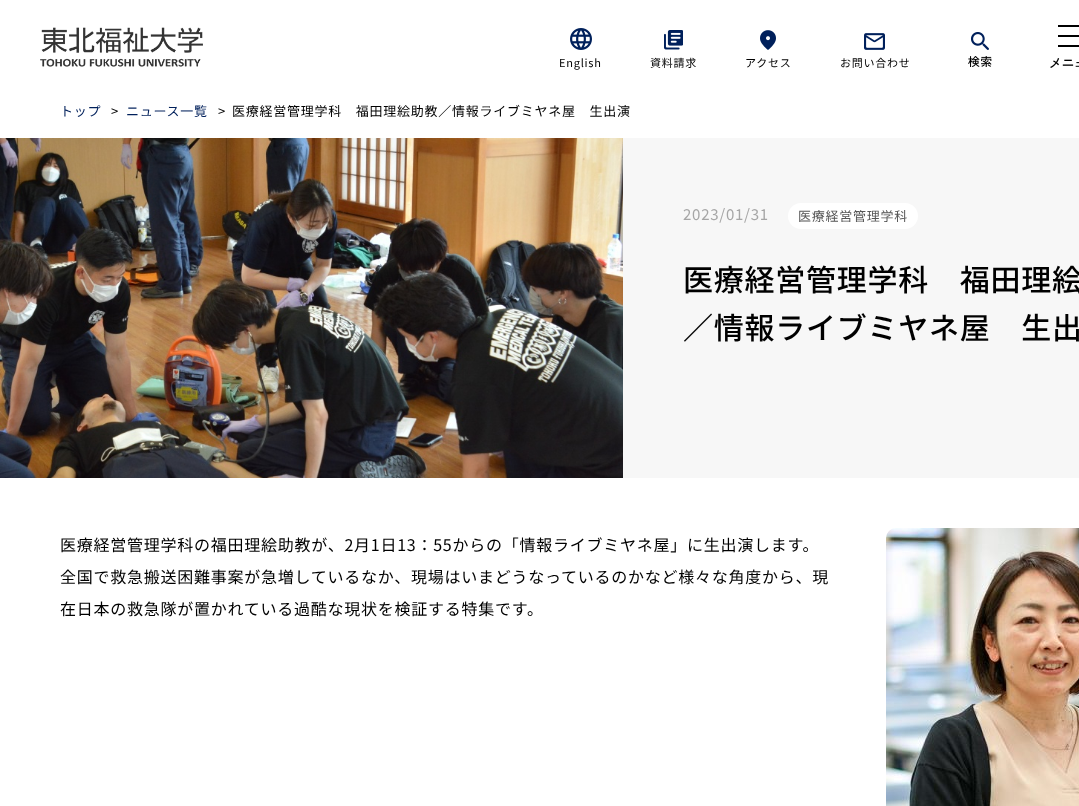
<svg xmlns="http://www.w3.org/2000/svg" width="1079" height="806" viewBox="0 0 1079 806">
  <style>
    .t1 { font: 11px Noto Sans JP; letter-spacing: 0.75px; fill: #000; }
    .t2 { font: 13px Noto Sans JP; letter-spacing: 0.75px; fill: #00205b; }
    .t3 { font: 13px Noto Sans JP; letter-spacing: 0.75px; fill: #000; }
    .t4 { font: 15px Noto Sans JP; letter-spacing: 0.75px; fill: #a6a6a6; }
    .t5 { font: 13px Noto Sans JP; letter-spacing: 0.75px; fill: #555; }
    .t6 { font: 500 30px Noto Sans JP; letter-spacing: 0.75px; fill: #000; }
    .t7 { font: 16px Noto Sans JP; letter-spacing: 0.75px; fill: #000; }
  </style>
  <rect width="100%" height="100%" fill="#fff"/>
  <image x="40" y="27" width="163" height="40" href="images/1.png"/>
  <image x="570" y="28" width="22" height="22" href="images/2.png"/>
  <text x="559" y="67" class="t1">English</text>
  <image x="664" y="30" width="19" height="20" href="images/3.png"/>
  <text x="650" y="67" class="t1">資料請求</text>
  <image x="760" y="30" width="16" height="20" href="images/4.png"/>
  <text x="745" y="67" class="t1">アクセス</text>
  <image x="864" y="33" width="21" height="17" href="images/5.png"/>
  <text x="840" y="67" class="t1">お問い合わせ</text>
  <image x="971" y="32" width="18" height="18" href="images/6.png"/>
  <image x="968" y="56" width="24" height="11" href="images/7.png"/>
  <image x="1050" y="58" width="29" height="10" href="images/8.png"/>
  <rect x="1058" y="25" width="21" height="2" fill="#000"/>
  <rect x="1058" y="35" width="21" height="2" fill="#000"/>
  <rect x="1058" y="45" width="21" height="2" fill="#000"/>
  <text x="60" y="116" class="t2">トップ</text>
  <text x="111" y="116" class="t3">&gt;</text>
  <text x="126" y="116" class="t2">ニュース一覧</text>
  <text x="218" y="116" class="t3">&gt;</text>
  <text x="232" y="116" class="t3">医療経営管理学科　福田理絵助教／情報ライブミヤネ屋　生出演</text>
  <rect x="623" y="138" width="456" height="340" fill="#f7f7f7"/>
  <image x="0" y="138" width="623" height="340" href="images/9.png"/>
  <text x="683" y="220" class="t4">2023/01/31</text>
  <rect x="788" y="203" width="130" height="26" rx="13" fill="#fff"/>
  <text x="798" y="221" class="t5">医療経営管理学科</text>
  <text x="683" y="291" class="t6">医療経営管理学科　福田理絵</text>
  <text x="683" y="339" class="t6">／情報ライブミヤネ屋　生出</text>
  <text x="60" y="551" class="t7">医療経営管理学科の福田理絵助教が、2月1日13：55からの「情報ライブミヤネ屋」に生出演します。</text>
  <text x="60" y="583" class="t7">全国で救急搬送困難事案が急増しているなか、現場はいまどうなっているのかなど様々な角度から、現</text>
  <text x="60" y="615" class="t7">在日本の救急隊が置かれている過酷な現状を検証する特集です。</text>
  <image x="886" y="528" width="193" height="278" href="images/10.png"/>
</svg>
